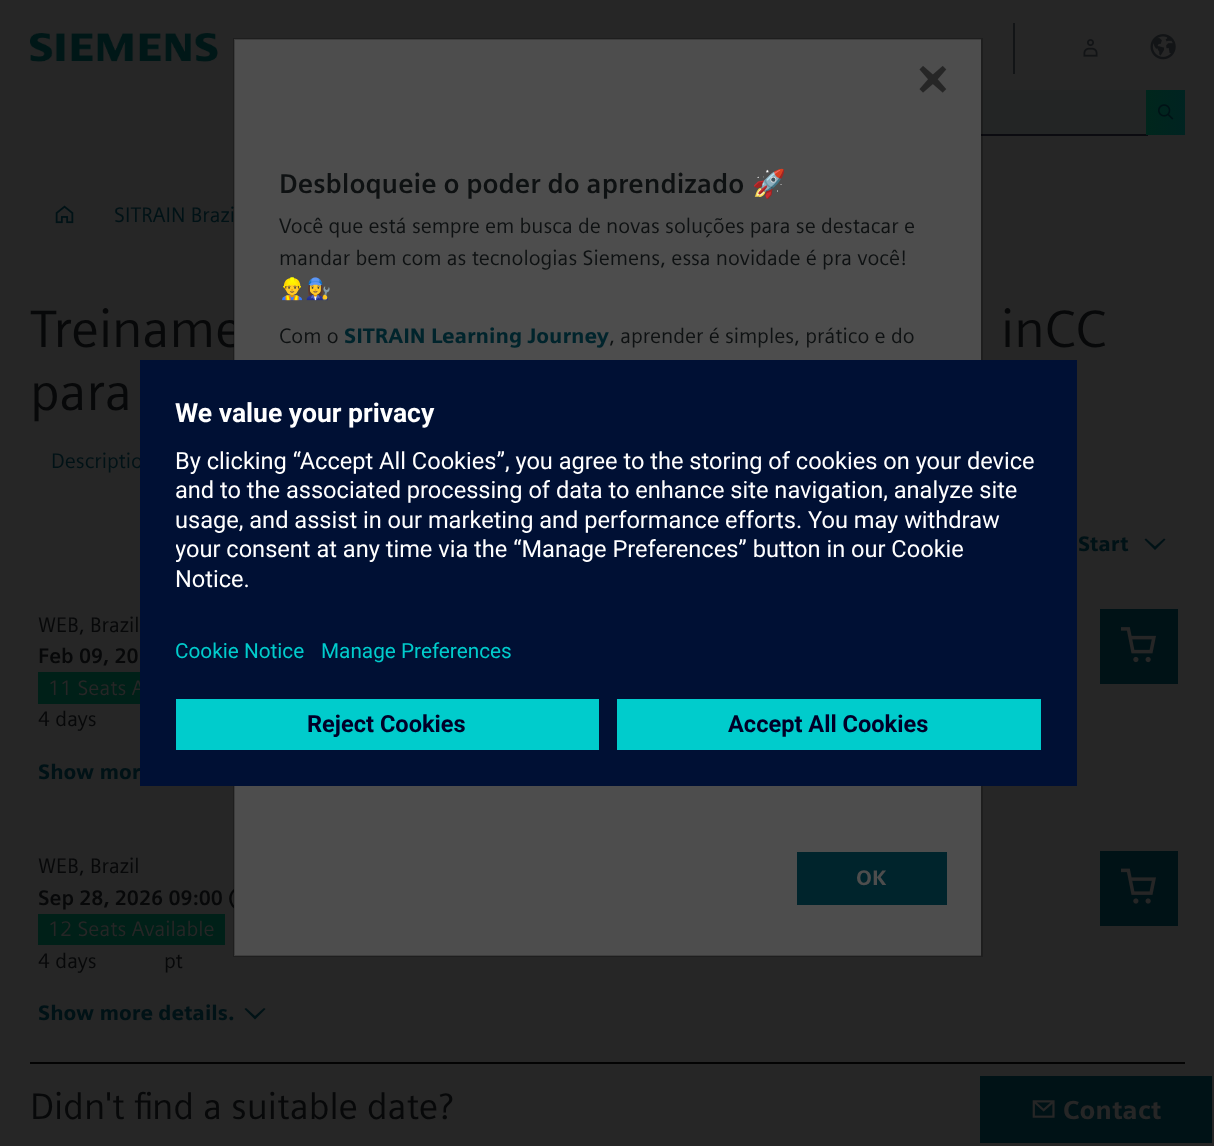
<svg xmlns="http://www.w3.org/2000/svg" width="1214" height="1146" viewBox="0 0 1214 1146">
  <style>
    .t1 { font: 21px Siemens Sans; fill: #001216; }
    .t2 { font: 52.5px Siemens Sans; fill: #070809; }
    .t3 { font: bold 21px Siemens Sans; fill: #070809; }
    .t4 { font: bold 27.25px Siemens Sans; fill: #0e1112; }
    .t5 { font: 27.25px Noto Color Emoji; fill: #0e1112; }
    .t6 { font: 21px Siemens Sans; fill: #0e1112; }
    .t7 { font: 21px Noto Color Emoji; fill: #0e1112; }
    .t8 { font: 900 21px Siemens Sans; fill: #00242c; }
    .t9 { font: 900 21px Siemens Sans; fill: #4d4d4d; }
    .t10 { font: 900 21px Siemens Sans; fill: #001216; }
    .t11 { font: 21px Siemens Sans; fill: #070809; }
    .t12 { font: 21px Siemens Sans; fill: #262626; }
    .t13 { font: 36.75px Siemens Sans; fill: #070809; }
    .t14 { font: bold 26.5px Roboto; fill: #fff; }
    .t15 { font: 23.6px Roboto; fill: #fff; }
    .t16 { font: 20.75px Roboto; fill: #0cc; }
    .t17 { font: bold 23.6px Roboto; fill: #000028; }
    .t18 { font: 900 26px Siemens Sans; fill: #262626; }
  </style>
  <defs>
    <linearGradient id="g1" gradientUnits="userSpaceOnUse" x1="1146" y1="113" x2="1185" y2="113"><stop offset="0" stop-color="#00261c"/><stop offset="1" stop-color="#002321"/></linearGradient>
    <clipPath id="clip1"><rect x="176" y="440" width="865" height="160"/></clipPath>
  </defs>
  <rect width="100%" height="100%" fill="#262626"/>
  <image x="30" y="33" width="188" height="29" href="images/1.png"/>
  <rect x="1013" y="23" width="2" height="51" fill="#121416"/>
  <image x="1083" y="39" width="15" height="18" href="images/2.png"/>
  <image x="1150" y="34" width="26" height="26" href="images/3.png"/>
  <rect x="981" y="90" width="165" height="44" fill="#232525"/>
  <rect x="981" y="134" width="167" height="2" fill="#0b0b10"/>
  <rect x="1146" y="90" width="39" height="45" fill="url(#g1)"/>
  <image x="1158" y="104" width="16" height="16" href="images/4.png"/>
  <image x="55" y="205" width="19" height="19" href="images/5.png"/>
  <text x="114" y="222" class="t1">SITRAIN Brazi</text>
  <text x="30" y="347" class="t2">Treiname</text>
  <text x="38" y="905" class="t3">Sep 28, 2026 09:00 (</text>
  <rect x="234" y="39" width="747" height="917" fill="#4d4d4d"/>
  <rect x="234" y="39" width="748" height="917" fill="none" stroke="#00000033" stroke-width="2"/>
  <image x="919" y="66" width="28" height="27" href="images/6.png"/>
  <text x="279" y="193" class="t4">Desbloqueie o poder do aprendizado</text>
  <text x="752" y="193" class="t5">🚀</text>
  <text x="279" y="233" class="t6">Você que está sempre em busca de novas soluções para se destacar e</text>
  <text x="279" y="265" class="t6">mandar bem com as tecnologias Siemens, essa novidade é pra você!</text>
  <text x="279" y="296" class="t7">👷‍♂️👩‍🔧</text>
  <text x="279" y="343" class="t6">Com o</text>
  <text x="344" y="343" class="t8">SITRAIN Learning Journey</text>
  <text x="609" y="343" class="t6">, aprender é simples, prático e do</text>
  <rect x="797" y="852" width="150" height="53" fill="#00242c"/>
  <text x="856" y="885" class="t9">OK</text>
  <text x="1001" y="347" class="t2">inCC</text>
  <text x="30" y="410" class="t2">para</text>
  <text x="51" y="468" class="t1">Descriptio</text>
  <text x="1078" y="551" class="t10">Start</text>
  <path d="M1155 550L1165.5 539.5L1164 538.5L1155 546.5L1146 538.5L1144.5 539.5Z" fill="#001216"/>
  <rect x="30" y="1062" width="1155" height="2" fill="#030303"/>
  <text x="38" y="632" class="t11">WEB, Brazil</text>
  <text x="38" y="663" class="t3">Feb 09, 20</text>
  <rect x="38" y="672" width="102" height="32" fill="#002018"/>
  <text x="48" y="695" class="t12">11 Seats A</text>
  <text x="38" y="726" class="t11">4 days</text>
  <text x="38" y="779" class="t10">Show mor</text>
  <rect x="1100" y="609" width="78" height="75" fill="#001216"/>
  <image x="1121" y="627" width="35" height="36" href="images/7.png"/>
  <text x="38" y="873" class="t11">WEB, Brazil</text>
  <rect x="38" y="914" width="187" height="31" fill="#002018"/>
  <text x="48" y="936" class="t12">12 Seats Available</text>
  <text x="38" y="968" class="t11">4 days</text>
  <text x="164" y="968" class="t11">pt</text>
  <text x="38" y="1020" class="t10">Show more details.</text>
  <path d="M255 1019.5L265.5 1009L264 1008L255 1016L246 1008L244.5 1009Z" fill="#001216"/>
  <rect x="1100" y="851" width="78" height="75" fill="#001216"/>
  <image x="1121" y="868" width="35" height="36" href="images/8.png"/>
  <text x="30" y="1119" class="t13">Didn't find a suitable date?</text>
  <rect x="140" y="360" width="937" height="426" fill="#001034"/>
  <text x="175" y="422" class="t14">We value your privacy</text>
  <text x="175" y="469" class="t15">By clicking “Accept All Cookies”, you agree to the storing of cookies on your device</text>
  <text x="175" y="498" class="t15">and to the associated processing of data to enhance site navigation, analyze site</text>
  <text x="175" y="528" class="t15">usage, and assist in our marketing and performance efforts. You may withdraw</text>
  <g clip-path="url(#clip1)">
    <text x="175" y="557" class="t15">your consent at any time via the “Manage Preferences” button in our Cookie</text>
  </g>
  <text x="175" y="587" class="t15">Notice.</text>
  <text x="175" y="658" class="t16">Cookie Notice</text>
  <text x="321" y="658" class="t16">Manage Preferences</text>
  <rect x="176" y="699" width="423" height="51" fill="#0cc"/>
  <text x="307" y="732" class="t17">Reject Cookies</text>
  <rect x="617" y="699" width="424" height="51" fill="#0cc"/>
  <text x="728" y="732" class="t17">Accept All Cookies</text>
  <rect x="980" y="1076" width="232" height="67" fill="#001216"/>
  <image x="1032" y="1100" width="23" height="18" href="images/9.png"/>
  <text x="1063" y="1119" class="t18">Contact</text>
</svg>
